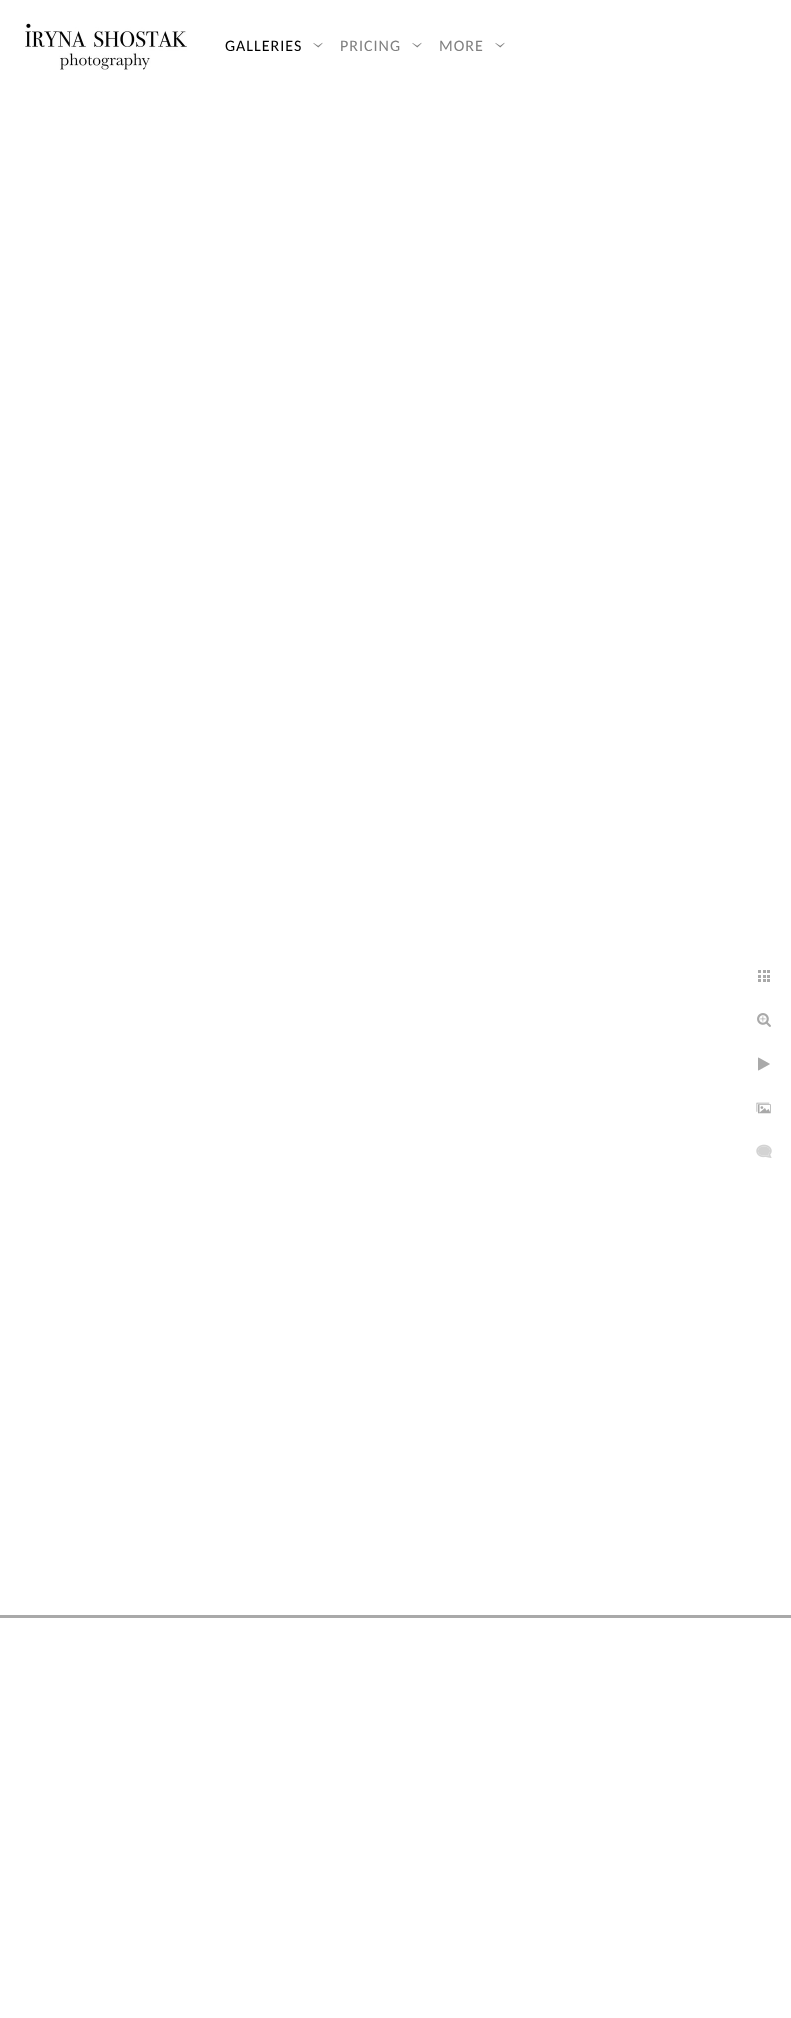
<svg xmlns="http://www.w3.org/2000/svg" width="791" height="2018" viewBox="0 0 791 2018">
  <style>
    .t1 { font: 16px Carlito; letter-spacing: 1px; fill: #000; }
    .t2 { font: 16px Carlito; letter-spacing: 1px; fill: #808080; }
  </style>
  <rect width="100%" height="100%" fill="#fff"/>
  <image x="25" y="23" width="162" height="47" href="images/1.png"/>
  <text x="225" y="51" class="t1">GALLERIES</text>
  <image x="313" y="42" width="10" height="6" href="images/2.png"/>
  <text x="340" y="51" class="t2">PRICING</text>
  <image x="412" y="42" width="10" height="6" href="images/2.png"/>
  <text x="439" y="51" class="t2">MORE</text>
  <image x="495" y="42" width="10" height="6" href="images/2.png"/>
  <image x="758" y="970" width="12" height="12" href="images/3.png"/>
  <image x="757" y="1013" width="14" height="14" href="images/4.png"/>
  <image x="758" y="1057" width="12" height="14" href="images/5.png"/>
  <image x="756" y="1102" width="15" height="12" href="images/6.png"/>
  <image x="756" y="1144" width="16" height="14" href="images/7.png"/>
  <rect x="0" y="1615" width="791" height="3" fill="#a9a9a9"/>
</svg>
